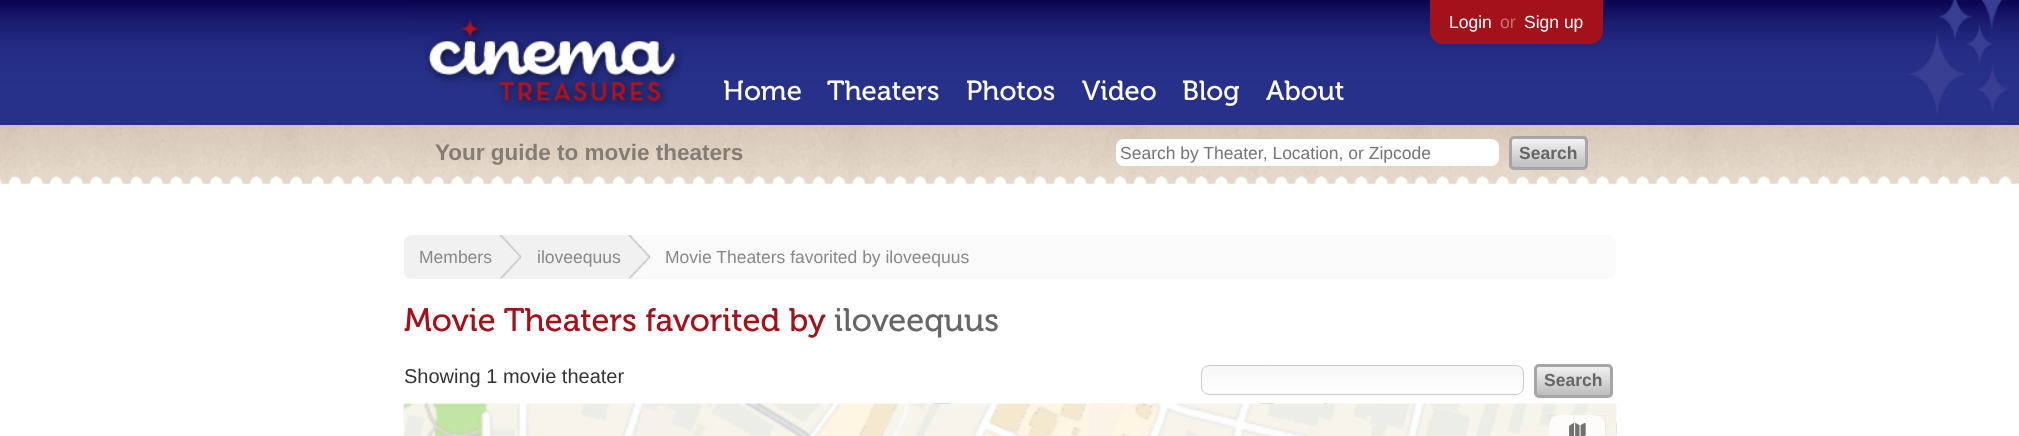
<svg xmlns="http://www.w3.org/2000/svg" width="2019" height="436" viewBox="0 0 2019 436">
  <style>
    .t1 { font: 27.5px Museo; fill: #fff; }
    .t2 { font: 17.5px Liberation Sans; fill: #fff; }
    .t3 { font: 17.5px Liberation Sans; fill: #c87176; }
    .t4 { font: bold 22.5px Liberation Sans; fill: #857d74; }
    .t5 { font: 17.5px Liberation Sans; fill: #757575; }
    .t6 { font: bold 17.5px Liberation Sans; fill: #666; }
    .t7 { font: 17.5px Liberation Sans; fill: #888; }
    .t8 { font: 32.5px Museo; fill: #a3121b; }
    .t9 { font: 32.5px Museo; fill: #666; }
    .t10 { font: 20px Liberation Sans; fill: #333; }
  </style>
  <defs>
    <linearGradient id="g1" gradientUnits="userSpaceOnUse" x1="1548" y1="139" x2="1548" y2="168"><stop offset="0" stop-color="#f2f2f2"/><stop offset="1" stop-color="#bdbdbd"/></linearGradient>
    <clipPath id="clip1"><rect x="1201" y="365" width="323" height="30" rx="8"/></clipPath>
    <linearGradient id="g2" gradientUnits="userSpaceOnUse" x1="1363" y1="366" x2="1363" y2="394"><stop offset="0" stop-color="#f6f6f6"/><stop offset="1" stop-color="#fff"/></linearGradient>
    <linearGradient id="g3" gradientUnits="userSpaceOnUse" x1="1573" y1="366" x2="1573" y2="395"><stop offset="0" stop-color="#f2f2f2"/><stop offset="1" stop-color="#bdbdbd"/></linearGradient>
  </defs>
  <rect width="100%" height="100%" fill="#fff"/>
  <image x="0" y="0" width="2019" height="125" href="images/1.png"/>
  <image x="410" y="0" width="1200" height="125" href="images/2.png"/>
  <image x="425" y="18" width="258" height="92" href="images/3.png"/>
  <text x="723" y="100" class="t1">Home</text>
  <text x="827" y="100" class="t1">Theaters</text>
  <text x="966" y="100" class="t1">Photos</text>
  <text x="1082" y="100" class="t1">Video</text>
  <text x="1182" y="100" class="t1">Blog</text>
  <text x="1266" y="100" class="t1">About</text>
  <path d="M1430 0H1603V31C1603 38 1597 44 1590 44H1443C1436 44 1430 38 1430 31Z" fill="#a3121b"/>
  <text x="1449" y="28" class="t2">Login</text>
  <text x="1500" y="28" class="t3">or</text>
  <text x="1524" y="28" class="t2">Sign up</text>
  <image x="1908" y="0" width="101" height="116" href="images/4.png"/>
  <image x="0" y="125" width="2019" height="60" href="images/5.png"/>
  <text x="435" y="160" class="t4">Your guide to movie theaters</text>
  <rect x="1116" y="139" width="383" height="27" rx="8" fill="#fff"/>
  <text x="1120" y="159" class="t5">Search by Theater, Location, or Zipcode</text>
  <rect x="1511" y="139" width="74" height="29" rx="2.5" fill="url(#g1)"/>
  <rect x="1510.5" y="137.5" width="76" height="31" rx="3.5" fill="none" stroke="#a6a6a6" stroke-width="3"/>
  <text x="1519" y="159" class="t6">Search</text>
  <rect x="404" y="235" width="1212" height="44" rx="8" fill="#fafafa"/>
  <path d="M412 235H521V279H412C407.5 279 404 275.5 404 271V243C404 238.5 407.5 235 412 235Z" fill="#f1f1f1"/>
  <image x="499" y="235" width="22" height="44" href="images/6.png"/>
  <text x="419" y="263" class="t7">Members</text>
  <rect x="521" y="235" width="129" height="44" fill="#f1f1f1"/>
  <image x="628" y="235" width="22" height="44" href="images/7.png"/>
  <text x="537" y="263" class="t7">iloveequus</text>
  <text x="665" y="263" class="t7">Movie Theaters favorited by iloveequus</text>
  <text x="404" y="331" class="t8">Movie Theaters favorited by</text>
  <text x="834" y="331" class="t9">iloveequus</text>
  <text x="404" y="383" class="t10">Showing 1 movie theater</text>
  <g clip-path="url(#clip1)">
    <rect x="1201" y="366" width="323" height="28" fill="url(#g2)"/>
  </g>
  <rect x="1201.5" y="365.5" width="322" height="29" rx="7.5" fill="none" stroke="#ccc"/>
  <rect x="1536" y="366" width="74" height="29" rx="2.5" fill="url(#g3)"/>
  <rect x="1535.5" y="365.5" width="76" height="31" rx="3.5" fill="none" stroke="#a6a6a6" stroke-width="3"/>
  <text x="1544" y="386" class="t6">Search</text>
  <image x="403" y="403" width="1214" height="33" href="images/8.png"/>
  <image x="403" y="403" width="1214" height="33" href="images/9.png"/>
  <rect x="1549.3" y="415.3" width="56.4" height="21.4" fill="none" stroke="#0000000d" stroke-width="0.6"/>
  <rect x="1549" y="415" width="56" height="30" rx="11" fill="#ffffffbf"/>
  <image x="1569" y="422" width="17" height="14" href="images/10.png"/>
</svg>
